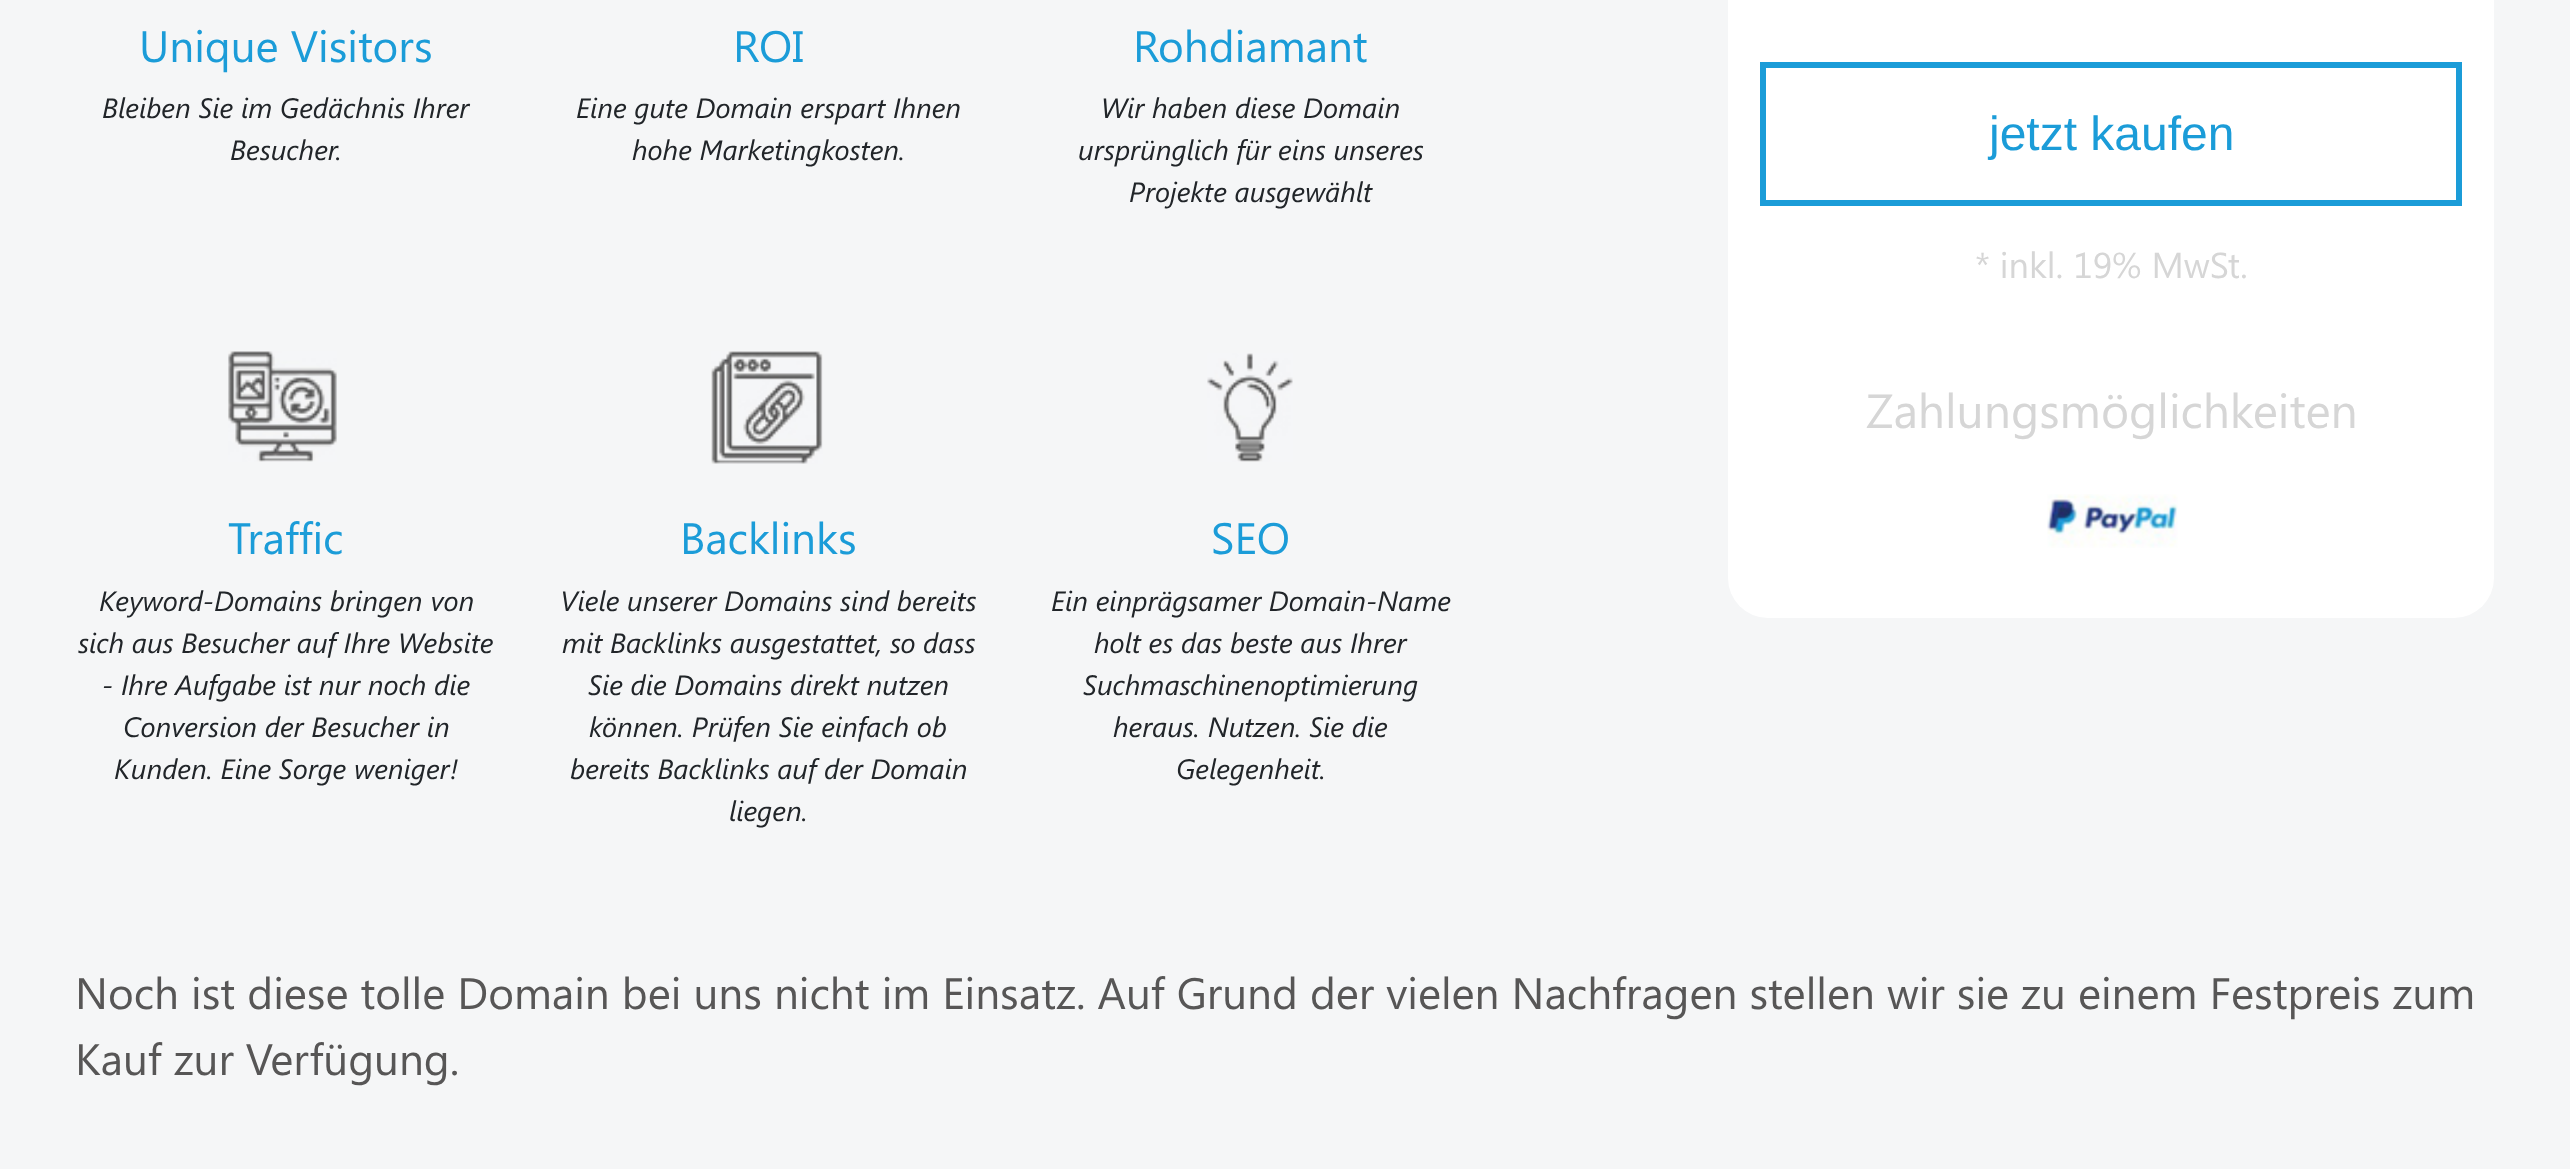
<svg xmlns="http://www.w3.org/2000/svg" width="2570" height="1169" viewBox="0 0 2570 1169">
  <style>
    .t1 { font: 44px Segoe UI; fill: #1b9cd8; }
    .t2 { font: italic 28px Segoe UI; fill: #212529; }
    .t3 { font: 48px Liberation Sans; fill: #1b9cd8; }
    .t4 { font: 36px Segoe UI; fill: #d6d6d6; }
    .t5 { font: 48px Segoe UI; fill: #d6d6d6; }
    .t6 { font: 44px Segoe UI; fill: #575656; }
  </style>
  <rect width="100%" height="100%" fill="#f5f6f7"/>
  <text x="139" y="62" class="t1">Unique Visitors</text>
  <text x="102" y="118" class="t2">Bleiben Sie im Gedächnis Ihrer</text>
  <text x="230" y="160" class="t2">Besucher.</text>
  <text x="733" y="62" class="t1">ROI</text>
  <text x="576" y="118" class="t2">Eine gute Domain erspart Ihnen</text>
  <text x="632" y="160" class="t2">hohe Marketingkosten.</text>
  <text x="1133" y="62" class="t1">Rohdiamant</text>
  <text x="1101" y="118" class="t2">Wir haben diese Domain</text>
  <text x="1078" y="160" class="t2">ursprünglich für eins unseres</text>
  <text x="1129" y="202" class="t2">Projekte ausgewählt</text>
  <image x="228" y="351" width="109" height="111" href="images/1.png"/>
  <text x="228" y="554" class="t1">Traffic</text>
  <text x="99" y="611" class="t2">Keyword-Domains bringen von</text>
  <text x="78" y="653" class="t2">sich aus Besucher auf Ihre Website</text>
  <text x="102" y="695" class="t2">- Ihre Aufgabe ist nur noch die</text>
  <text x="123" y="737" class="t2">Conversion der Besucher in</text>
  <text x="114" y="779" class="t2">Kunden. Eine Sorge weniger!</text>
  <image x="711" y="351" width="112" height="113" href="images/2.png"/>
  <text x="680" y="554" class="t1">Backlinks</text>
  <text x="560" y="611" class="t2">Viele unserer Domains sind bereits</text>
  <text x="562" y="653" class="t2">mit Backlinks ausgestattet, so dass</text>
  <text x="588" y="695" class="t2">Sie die Domains direkt nutzen</text>
  <text x="589" y="737" class="t2">können. Prüfen Sie einfach ob</text>
  <text x="570" y="779" class="t2">bereits Backlinks auf der Domain</text>
  <text x="729" y="821" class="t2">liegen.</text>
  <image x="1207" y="353" width="86" height="109" href="images/3.png"/>
  <text x="1211" y="554" class="t1">SEO</text>
  <text x="1051" y="611" class="t2">Ein einprägsamer Domain-Name</text>
  <text x="1094" y="653" class="t2">holt es das beste aus Ihrer</text>
  <text x="1083" y="695" class="t2">Suchmaschinenoptimierung</text>
  <text x="1113" y="737" class="t2">heraus. Nutzen. Sie die</text>
  <text x="1176" y="779" class="t2">Gelegenheit.</text>
  <rect x="1728" y="-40" width="766" height="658" rx="40" fill="#fff"/>
  <rect x="1763" y="65" width="696" height="138" fill="none" stroke="#1b9cd8" stroke-width="6"/>
  <text x="1989" y="150" class="t3">jetzt kaufen</text>
  <text x="1975" y="278" class="t4">* inkl. 19% MwSt.</text>
  <text x="1866" y="428" class="t5">Zahlungsmöglichkeiten</text>
  <image x="2047" y="494" width="131" height="54" href="images/4.png"/>
  <text x="75" y="1009" class="t6">Noch ist diese tolle Domain bei uns nicht im Einsatz. Auf Grund der vielen Nachfragen stellen wir sie zu einem Festpreis zum</text>
  <text x="75" y="1075" class="t6">Kauf zur Verfügung.</text>
</svg>
